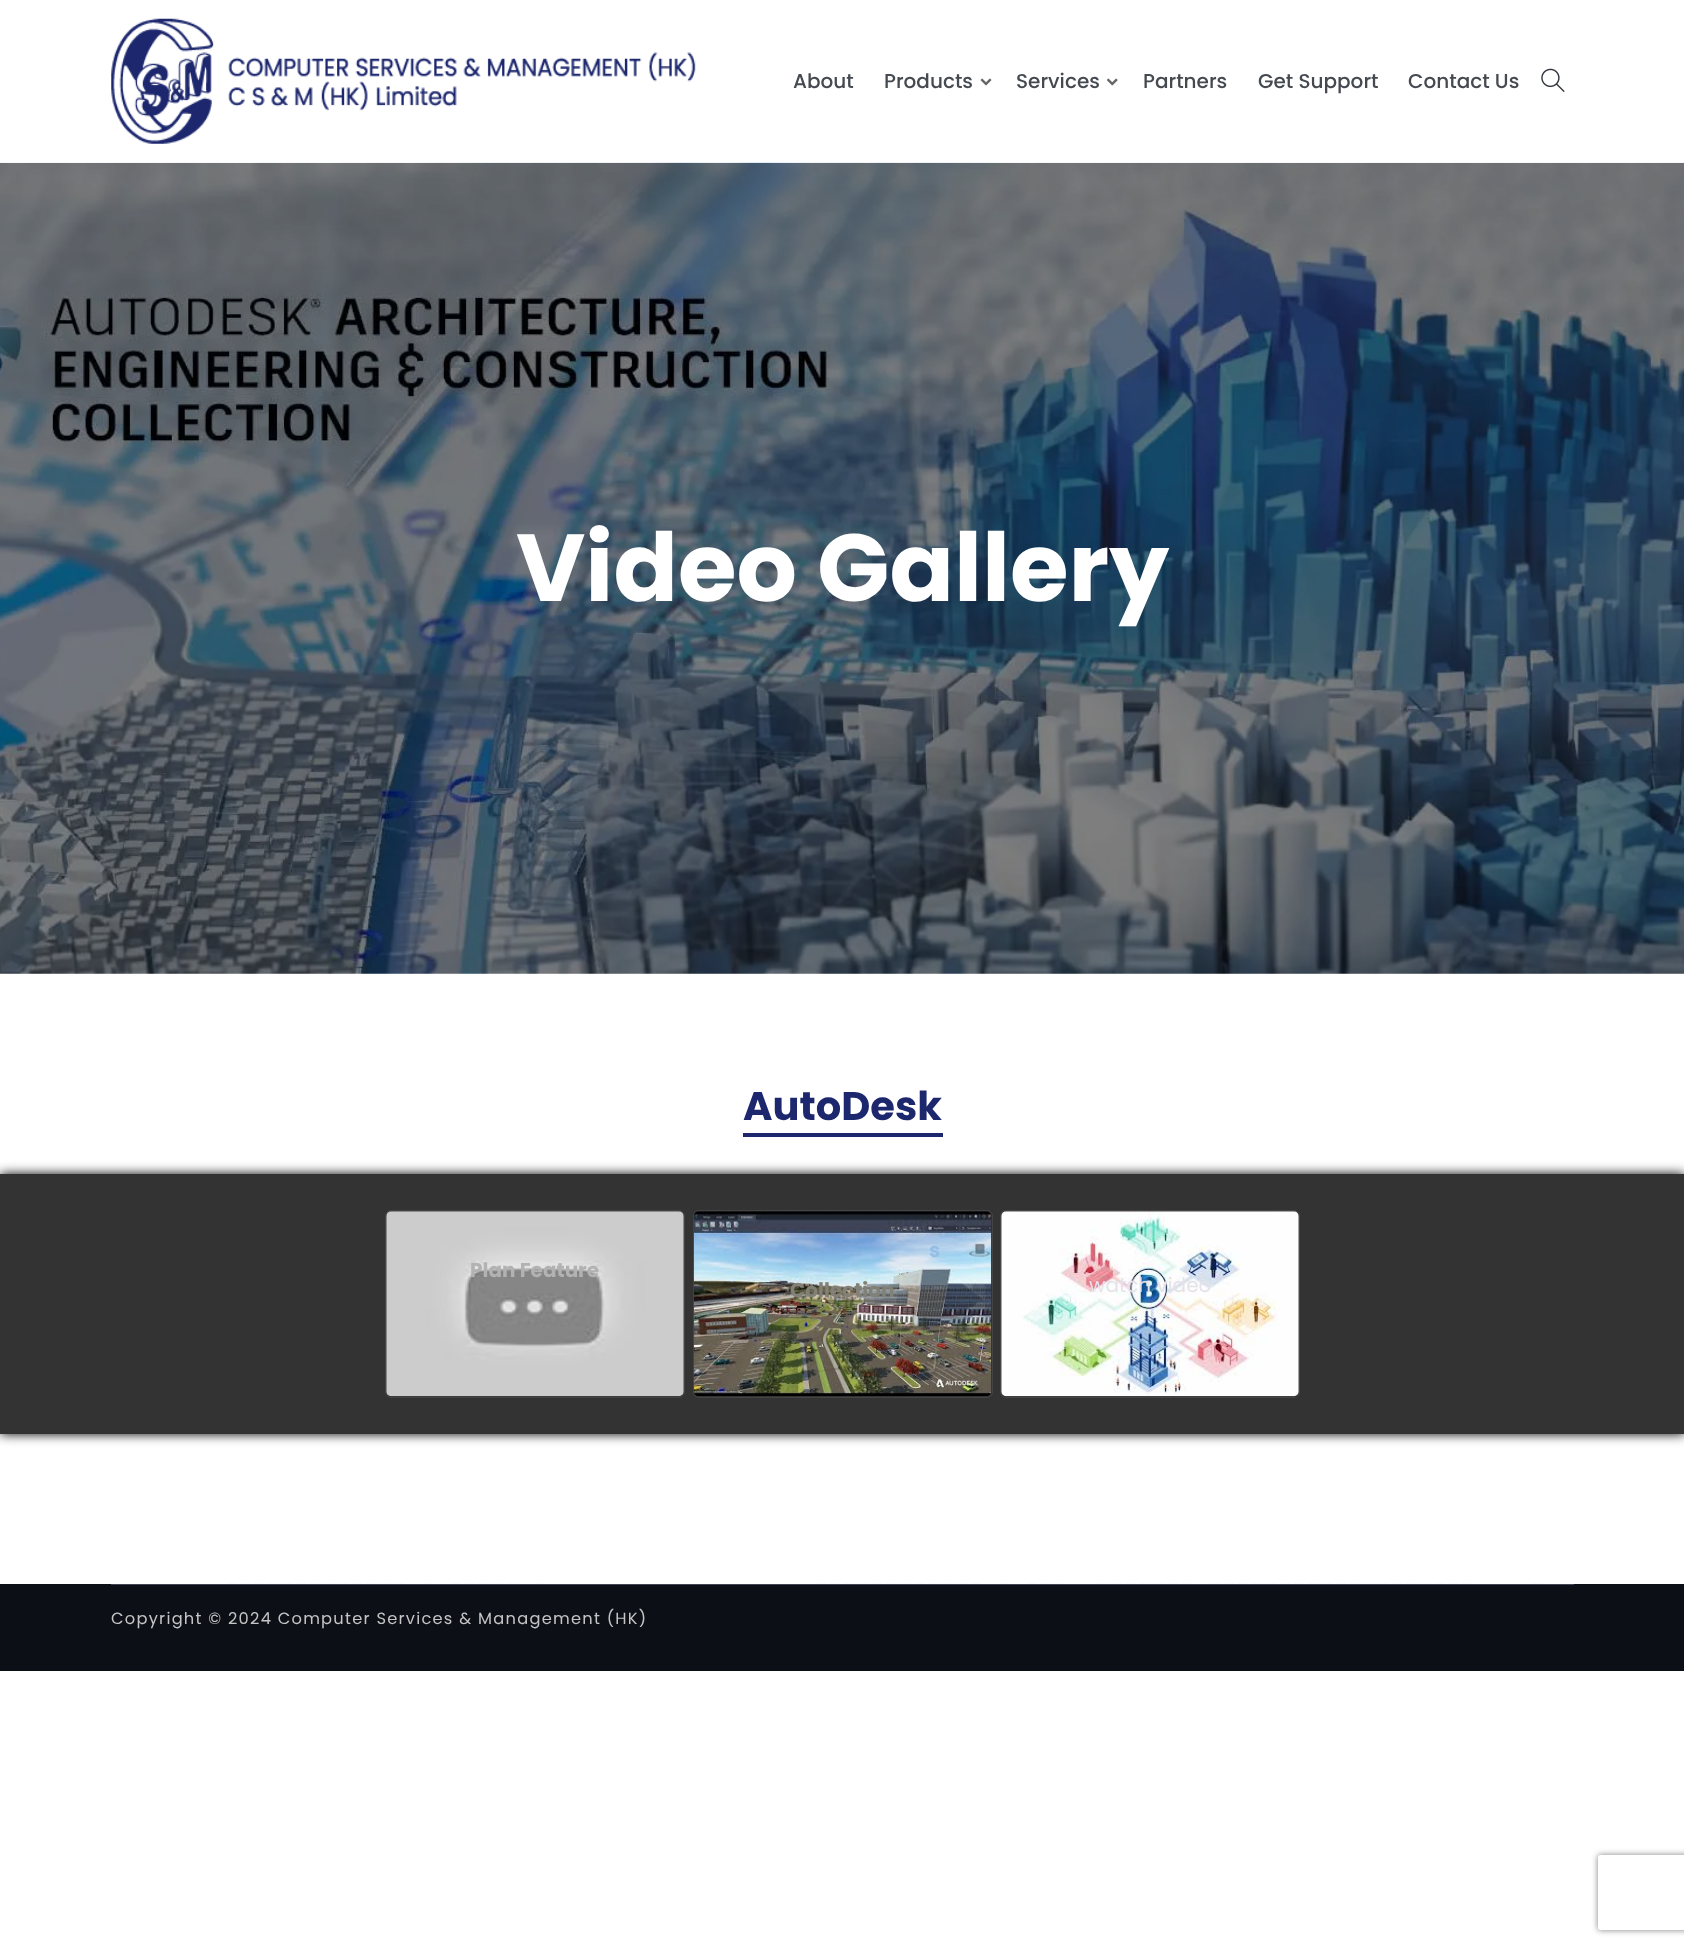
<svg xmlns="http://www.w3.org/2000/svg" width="1684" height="1947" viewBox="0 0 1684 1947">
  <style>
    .t1 { font: 500 20px Poppins; fill: #454950; }
    .t2 { font: bold 95px Poppins; fill: #fff; }
    .t3 { font: bold 40px Poppins; fill: #1c276d; }
    .t4 { font: bold 20px Poppins; fill: #b2b2b2; }
    .t5 { font: bold 20px Poppins; fill: #94bee6; }
    .t6 { font: bold 20px Poppins; fill: #818177; }
    .t7 { font: 20px Poppins; fill: #e5e2e9; }
    .t8 { font: 16.25px Poppins; letter-spacing: 1.25px; fill: #c5c5c5; }
  </style>
  <defs>
    <clipPath id="clip1"><path d="M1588 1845H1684V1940H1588ZM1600.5 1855H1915.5C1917 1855 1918 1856 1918 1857.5V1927.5C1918 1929 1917 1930 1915.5 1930H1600.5C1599 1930 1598 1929 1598 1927.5V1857.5C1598 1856 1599 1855 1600.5 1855Z" clip-rule="evenodd"/></clipPath>
  </defs>
  <rect width="100%" height="100%" fill="#fff"/>
  <image x="111" y="18" width="585" height="126" href="images/1.png"/>
  <text x="793" y="88" class="t1">About</text>
  <text x="884" y="88" class="t1">Products</text>
  <image x="980" y="78" width="12" height="8" href="images/2.png"/>
  <text x="1016" y="88" class="t1">Services</text>
  <image x="1107" y="78" width="11" height="8" href="images/3.png"/>
  <text x="1143" y="88" class="t1">Partners</text>
  <text x="1258" y="88" class="t1">Get Support</text>
  <text x="1408" y="88" class="t1">Contact Us</text>
  <image x="1541" y="68" width="24" height="24" href="images/4.png"/>
  <image x="0" y="162" width="1684" height="812" href="images/5.png"/>
  <text x="516" y="601" class="t2">Video Gallery</text>
  <rect x="743" y="1133" width="200" height="4" fill="#1c276d"/>
  <text x="743" y="1120" class="t3">AutoDesk</text>
  <rect x="0" y="1174" width="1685" height="260" fill="#000" filter="blur(6px)"/>
  <rect x="0" y="1174" width="1684" height="260" fill="#333"/>
  <rect x="385.5" y="1210.5" width="299" height="187" rx="5.5" fill="none" stroke="#444"/>
  <image x="386" y="1211" width="298" height="186" href="images/6.png"/>
  <text x="470" y="1277" class="t4">Plan Feature</text>
  <rect x="693.5" y="1210.5" width="299" height="187" rx="5.5" fill="none" stroke="#444"/>
  <image x="693" y="1211" width="299" height="185" href="images/7.png"/>
  <text x="929" y="1257" class="t5">s</text>
  <text x="790" y="1297" class="t6">Collection</text>
  <rect x="1000.5" y="1210.5" width="299" height="187" rx="5.5" fill="none" stroke="#444"/>
  <image x="1001" y="1211" width="298" height="186" href="images/8.png"/>
  <text x="1089" y="1292" class="t7">watch video</text>
  <image x="227" y="1583" width="1315" height="1" href="images/9.png"/>
  <rect x="0" y="1584" width="1684" height="87" fill="#0d0f17"/>
  <rect x="111" y="1584" width="1463" height="1" fill="#434658"/>
  <text x="111" y="1624" class="t8">Copyright © 2024 Computer Services &amp; Management (HK)</text>
  <g clip-path="url(#clip1)">
    <rect x="1598" y="1855" width="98" height="75" rx="2.5" fill="#808080" filter="blur(3px)"/>
  </g>
</svg>
